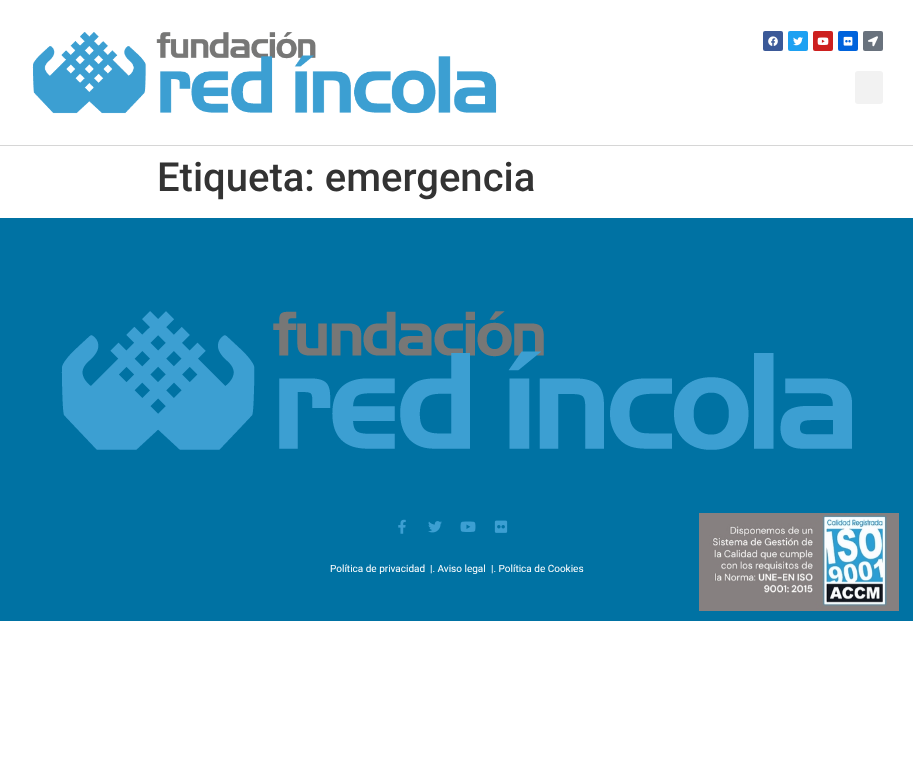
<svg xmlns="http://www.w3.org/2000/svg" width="913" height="765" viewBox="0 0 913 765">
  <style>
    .t1 { font: 500 40px Roboto; fill: #333; }
    .t2 { font: 10px Roboto; fill: #fff; }
  </style>
  <rect width="100%" height="100%" fill="#fff"/>
  <rect x="0" y="145" width="913" height="1" fill="#d6d6d6"/>
  <image x="32" y="32" width="465" height="82" href="images/1.png"/>
  <rect x="763" y="31" width="20" height="20" rx="2" fill="#3b5998"/>
  <image x="768" y="36" width="10" height="10" href="images/2.png"/>
  <rect x="788" y="31" width="20" height="20" rx="2" fill="#1da1f2"/>
  <image x="793" y="37" width="10" height="9" href="images/3.png"/>
  <rect x="813" y="31" width="20" height="20" rx="2" fill="#cd201f"/>
  <image x="817" y="37" width="12" height="8" href="images/4.png"/>
  <rect x="838" y="31" width="20" height="20" rx="2" fill="#0063dc"/>
  <image x="843" y="36" width="10" height="10" href="images/5.png"/>
  <rect x="863" y="31" width="20" height="20" rx="2" fill="#69727d"/>
  <image x="868" y="36" width="10" height="11" href="images/6.png"/>
  <rect x="855" y="71" width="28" height="33" rx="3" fill="#f2f2f2"/>
  <text x="157" y="191" class="t1">Etiqueta: emergencia</text>
  <rect x="0" y="218" width="913" height="403" fill="#0072a3"/>
  <image x="61" y="311" width="791" height="139" href="images/7.png"/>
  <image x="398" y="519" width="8" height="15" href="images/8.png"/>
  <image x="428" y="521" width="14" height="12" href="images/9.png"/>
  <image x="460" y="521" width="16" height="11" href="images/10.png"/>
  <image x="494" y="520" width="14" height="13" href="images/11.png"/>
  <text x="330" y="572" class="t2">Política de privacidad</text>
  <text x="430" y="572" class="t2">|. Aviso legal</text>
  <text x="491" y="572" class="t2">|. Política de Cookies</text>
  <image x="699" y="513" width="200" height="98" href="images/12.png"/>
</svg>
